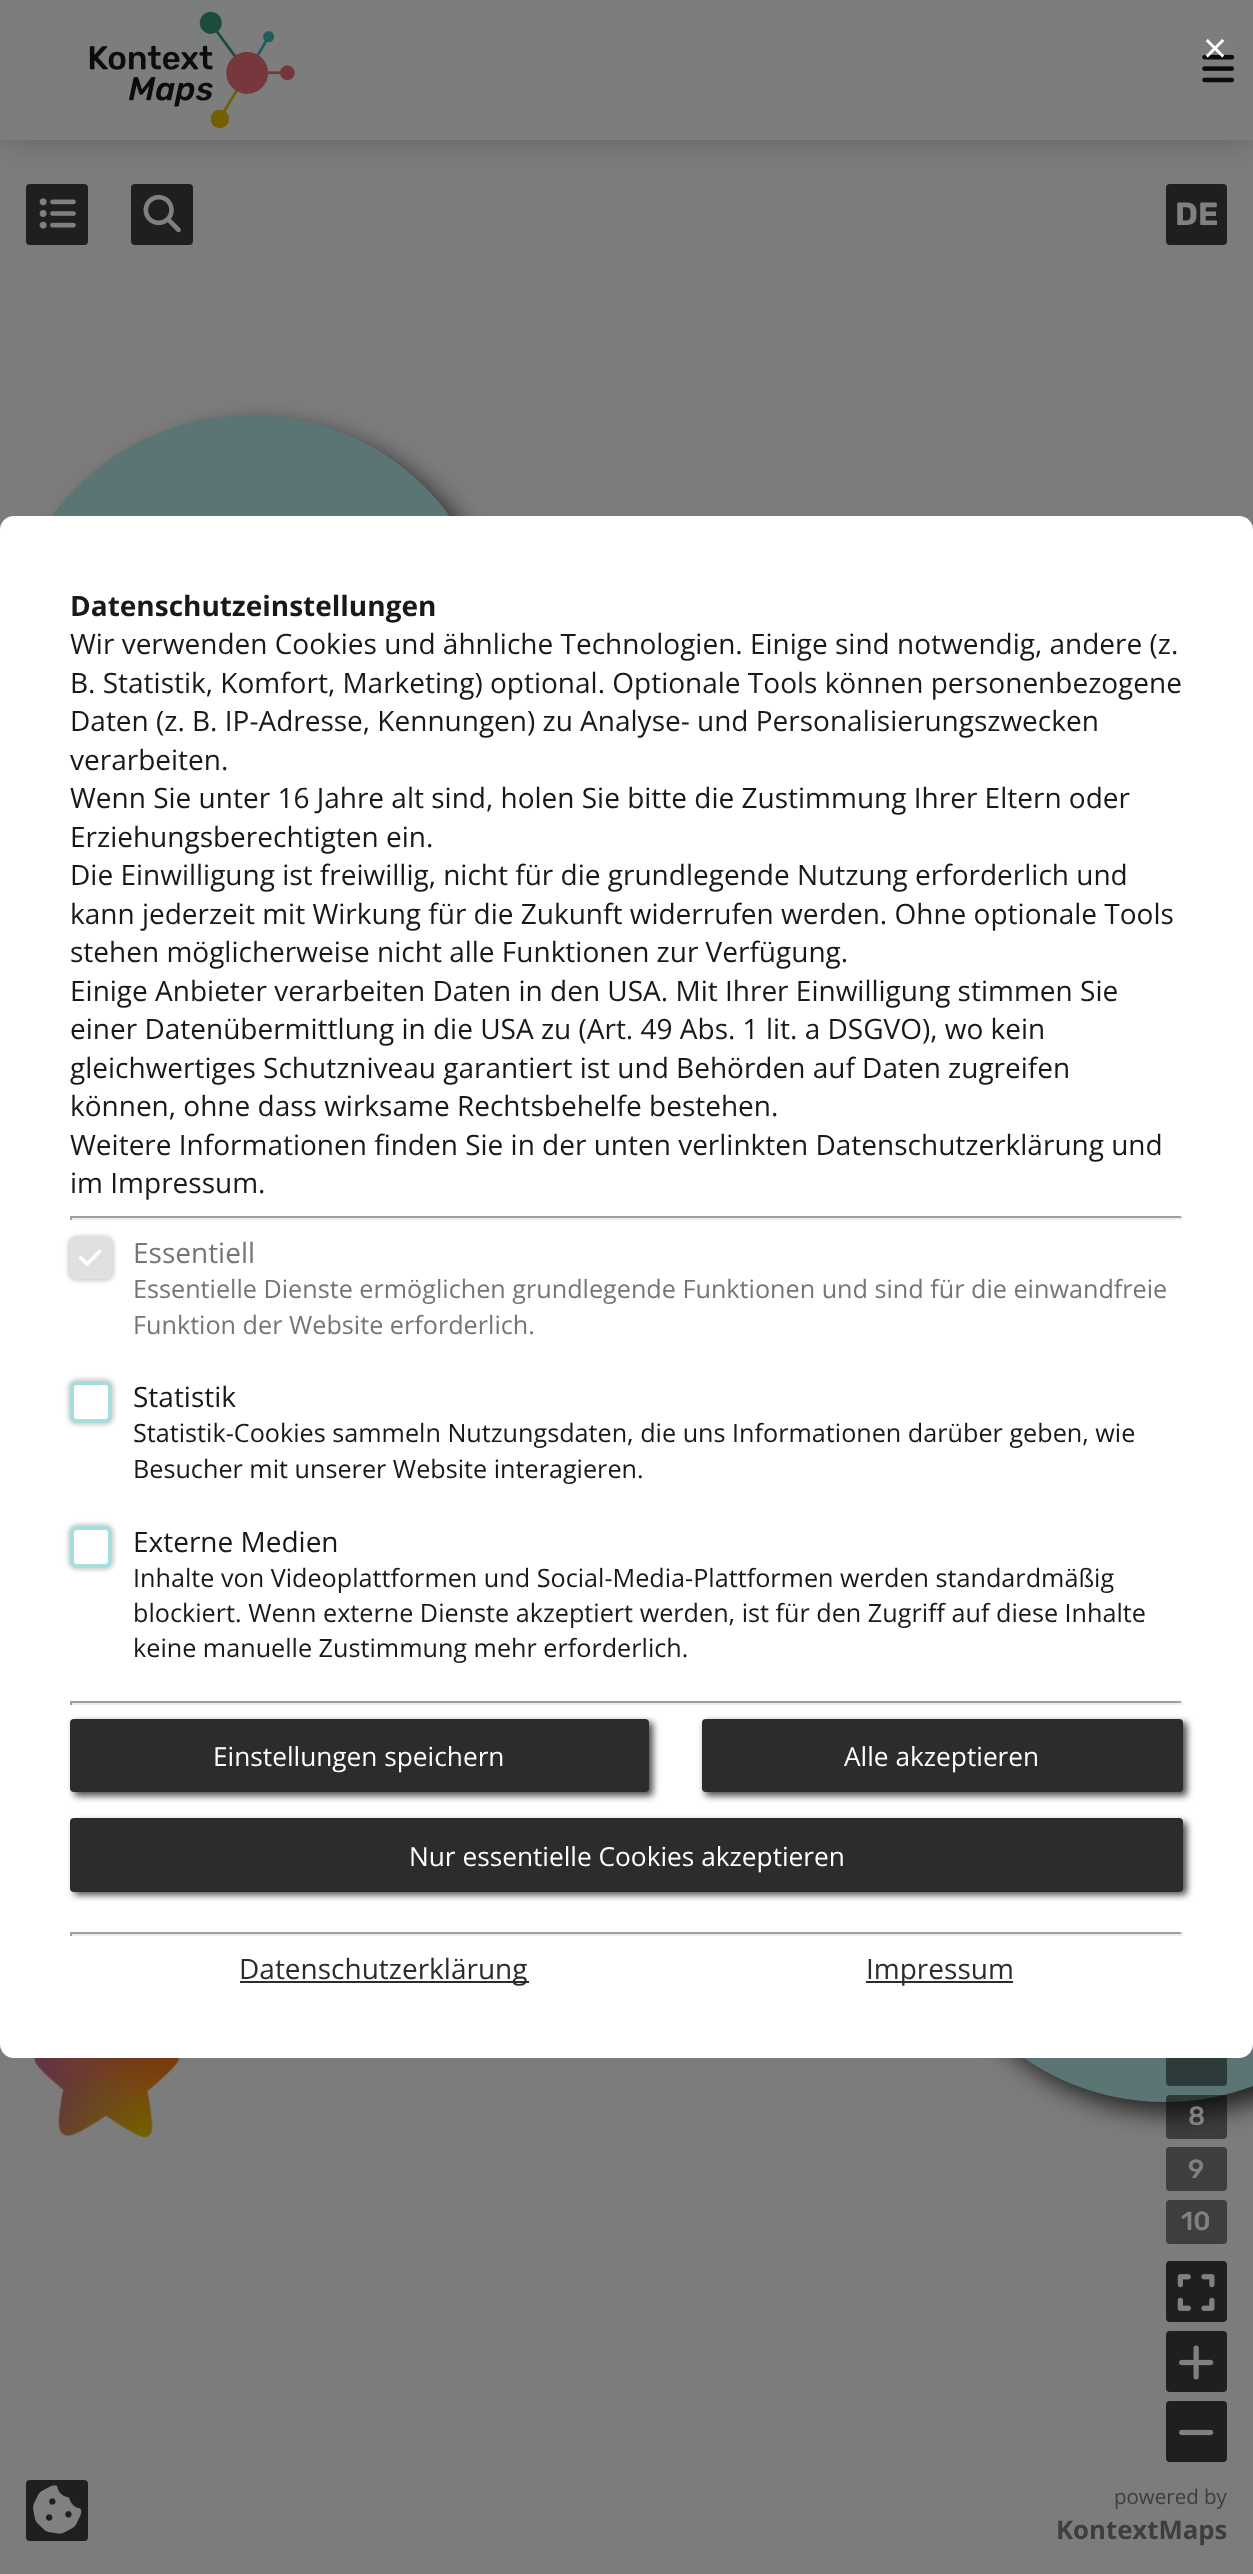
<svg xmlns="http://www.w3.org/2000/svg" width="1253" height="2574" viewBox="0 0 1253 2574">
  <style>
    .t1 { font: 42px Open Sans; fill: #fff; }
    .t2 { font: bold 28px Open Sans; fill: #191919; }
    .t3 { font: 28px Open Sans; fill: #191919; }
    .t4 { font: 28px Open Sans; fill: #757575; }
    .t5 { font: 25.2px Open Sans; fill: #757575; }
    .t6 { font: 25.2px Open Sans; fill: #191919; }
    .t7 { font: 26.25px Open Sans; fill: #fff; }
    .t8 { font: 28px Open Sans; fill: #2c2c2c; }
    .t9 { font: 300 32px Rubik; fill: #808080; }
    .t10 { font: 300 26.25px 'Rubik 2'; fill: #808080; }
    .t11 { font: 20.5px Open Sans; fill: #3e3e3e; }
    .t12 { font: bold 25.75px Open Sans; fill: #3e3e3e; }
  </style>
  <rect width="100%" height="100%" fill="#7c7c7c"/>
  <rect x="0" y="0" width="1253" height="140" fill="#00000033" filter="blur(14px)"/>
  <rect x="0" y="0" width="1253" height="140" fill="#7c7e7e"/>
  <image x="89" y="11" width="206" height="118" href="images/1.png"/>
  <image x="1202" y="54" width="33" height="29" href="images/2.png"/>
  <text x="1203" y="63" class="t1">×</text>
  <rect x="18" y="427" width="491" height="492" rx="245.5" fill="#000000b3" filter="blur(12.5px)"/>
  <circle cx="251" cy="661" r="246" fill="#5b7575"/>
  <rect x="931" y="1624" width="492" height="490" rx="245" fill="#000000b3" filter="blur(12.5px)"/>
  <rect x="919" y="1612" width="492" height="490" rx="245" fill="#5b7575"/>
  <rect x="1166" y="2042" width="61" height="44" rx="4" fill="#2e3b3b"/>
  <rect x="0" y="516" width="1253" height="1542" rx="14" fill="#fff"/>
  <text x="70" y="616" class="t2">Datenschutzeinstellungen</text>
  <text x="70" y="654" class="t3">Wir verwenden Cookies und ähnliche Technologien. Einige sind notwendig, andere (z.</text>
  <text x="70" y="693" class="t3">B. Statistik, Komfort, Marketing) optional. Optionale Tools können personenbezogene</text>
  <text x="70" y="731" class="t3">Daten (z. B. IP-Adresse, Kennungen) zu Analyse- und Personalisierungszwecken</text>
  <text x="70" y="770" class="t3">verarbeiten.</text>
  <text x="70" y="808" class="t3">Wenn Sie unter 16 Jahre alt sind, holen Sie bitte die Zustimmung Ihrer Eltern oder</text>
  <text x="70" y="847" class="t3">Erziehungsberechtigten ein.</text>
  <text x="70" y="885" class="t3">Die Einwilligung ist freiwillig, nicht für die grundlegende Nutzung erforderlich und</text>
  <text x="70" y="924" class="t3">kann jederzeit mit Wirkung für die Zukunft widerrufen werden. Ohne optionale Tools</text>
  <text x="70" y="962" class="t3">stehen möglicherweise nicht alle Funktionen zur Verfügung.</text>
  <text x="70" y="1001" class="t3">Einige Anbieter verarbeiten Daten in den USA. Mit Ihrer Einwilligung stimmen Sie</text>
  <text x="70" y="1039" class="t3">einer Datenübermittlung in die USA zu (Art. 49 Abs. 1 lit. a DSGVO), wo kein</text>
  <text x="70" y="1078" class="t3">gleichwertiges Schutzniveau garantiert ist und Behörden auf Daten zugreifen</text>
  <text x="70" y="1116" class="t3">können, ohne dass wirksame Rechtsbehelfe bestehen.</text>
  <text x="70" y="1155" class="t3">Weitere Informationen finden Sie in der unten verlinkten Datenschutzerklärung und</text>
  <text x="70" y="1193" class="t3">im Impressum.</text>
  <rect x="70" y="1216" width="1113" height="2" fill="#9f9f9f"/>
  <rect x="1181" y="1216" width="2" height="4" fill="#eee"/>
  <rect x="70" y="1218" width="1113" height="2" fill="#eee"/>
  <rect x="70" y="1216" width="2" height="4" fill="#9f9f9f"/>
  <rect x="68" y="1236" width="46" height="45" rx="9" fill="#9b9b9b80" filter="blur(2px)"/>
  <rect x="70" y="1237" width="42" height="42" rx="7" fill="#e0e0e0"/>
  <path d="M99.5 1249L102 1251.5L87 1266.5L84.5 1264Z" fill="#fff"/>
  <path d="M81 1255.5L89.5 1264L87 1266.5L78.5 1258Z" fill="#fff"/>
  <text x="133" y="1263" class="t4">Essentiell</text>
  <text x="133" y="1298" class="t5">Essentielle Dienste ermöglichen grundlegende Funktionen und sind für die einwandfreie</text>
  <text x="133" y="1334" class="t5">Funktion der Website erforderlich.</text>
  <rect x="68" y="1379" width="46" height="46" rx="9" fill="#9b9b9b80" filter="blur(2px)"/>
  <rect x="72" y="1383" width="38" height="38" rx="5" fill="#fff" stroke="#a6dddd" stroke-width="4"/>
  <text x="133" y="1407" class="t3">Statistik</text>
  <text x="133" y="1442" class="t6">Statistik-Cookies sammeln Nutzungsdaten, die uns Informationen darüber geben, wie</text>
  <text x="133" y="1478" class="t6">Besucher mit unserer Website interagieren.</text>
  <rect x="68" y="1524" width="46" height="46" rx="9" fill="#9b9b9b80" filter="blur(2px)"/>
  <rect x="72" y="1528" width="38" height="38" rx="5" fill="#fff" stroke="#a6dddd" stroke-width="4"/>
  <text x="133" y="1552" class="t3">Externe Medien</text>
  <text x="133" y="1587" class="t6">Inhalte von Videoplattformen und Social-Media-Plattformen werden standardmäßig</text>
  <text x="133" y="1622" class="t6">blockiert. Wenn externe Dienste akzeptiert werden, ist für den Zugriff auf diese Inhalte</text>
  <text x="133" y="1657" class="t6">keine manuelle Zustimmung mehr erforderlich.</text>
  <rect x="70" y="1701" width="1113" height="2" fill="#9f9f9f"/>
  <rect x="1181" y="1701" width="2" height="4" fill="#eee"/>
  <rect x="70" y="1703" width="1113" height="2" fill="#eee"/>
  <rect x="70" y="1701" width="2" height="4" fill="#9f9f9f"/>
  <rect x="74" y="1722" width="579" height="74" rx="4" fill="#000000b3" filter="blur(3.5px)"/>
  <rect x="70" y="1719" width="579" height="73" rx="4" fill="#2c2c2c"/>
  <text x="213" y="1766" class="t7">Einstellungen speichern</text>
  <rect x="705" y="1722" width="482" height="74" rx="4" fill="#000000b3" filter="blur(3.5px)"/>
  <rect x="702" y="1719" width="481" height="73" rx="4" fill="#2c2c2c"/>
  <text x="844" y="1766" class="t7">Alle akzeptieren</text>
  <rect x="74" y="1822" width="1113" height="73" rx="4" fill="#000000b3" filter="blur(3.5px)"/>
  <rect x="70" y="1818" width="1113" height="74" rx="4" fill="#2c2c2c"/>
  <text x="409" y="1866" class="t7">Nur essentielle Cookies akzeptieren</text>
  <rect x="70" y="1932" width="1113" height="2" fill="#9f9f9f"/>
  <rect x="1181" y="1932" width="2" height="4" fill="#eee"/>
  <rect x="70" y="1934" width="1113" height="2" fill="#eee"/>
  <rect x="70" y="1932" width="2" height="4" fill="#9f9f9f"/>
  <rect x="240" y="1981" width="289" height="2" fill="#2c2c2c"/>
  <text x="239" y="1979" class="t8">Datenschutzerklärung</text>
  <rect x="866" y="1981" width="147" height="2" fill="#2c2c2c"/>
  <text x="866" y="1979" class="t8">Impressum</text>
  <rect x="26" y="184" width="62" height="61" rx="4" fill="#1f1f1f"/>
  <image x="39" y="198" width="37" height="31" href="images/3.png"/>
  <rect x="131" y="184" width="62" height="61" rx="4" fill="#1f1f1f"/>
  <image x="143" y="194" width="38" height="39" href="images/4.png"/>
  <rect x="1166" y="184" width="61" height="61" rx="4" fill="#1f1f1f"/>
  <text x="1175" y="225" class="t9">DE</text>
  <image x="34" y="2058" width="146" height="80" href="images/5.png"/>
  <rect x="1166" y="2095" width="61" height="44" rx="4" fill="#00000080"/>
  <text x="1188" y="2125" class="t10">8</text>
  <rect x="1166" y="2147" width="61" height="44" rx="4" fill="#3e3e3e"/>
  <text x="1188" y="2178" class="t10">9</text>
  <rect x="1166" y="2200" width="61" height="44" rx="4" fill="#3e3e3e"/>
  <text x="1181" y="2230" class="t10">10</text>
  <rect x="1166" y="2261" width="61" height="61" rx="4" fill="#1f1f1f"/>
  <image x="1177" y="2274" width="38" height="37" href="images/6.png"/>
  <rect x="1166" y="2331" width="61" height="61" rx="4" fill="#1f1f1f"/>
  <image x="1179" y="2345" width="35" height="35" href="images/7.png"/>
  <rect x="1166" y="2401" width="61" height="61" rx="4" fill="#1f1f1f"/>
  <image x="1179" y="2429" width="35" height="7" href="images/8.png"/>
  <rect x="26" y="2480" width="62" height="61" rx="4" fill="#1f1f1f"/>
  <image x="33" y="2485" width="49" height="49" href="images/9.png"/>
  <text x="1114" y="2504" class="t11">powered by</text>
  <text x="1056" y="2539" class="t12">KontextMaps</text>
</svg>
